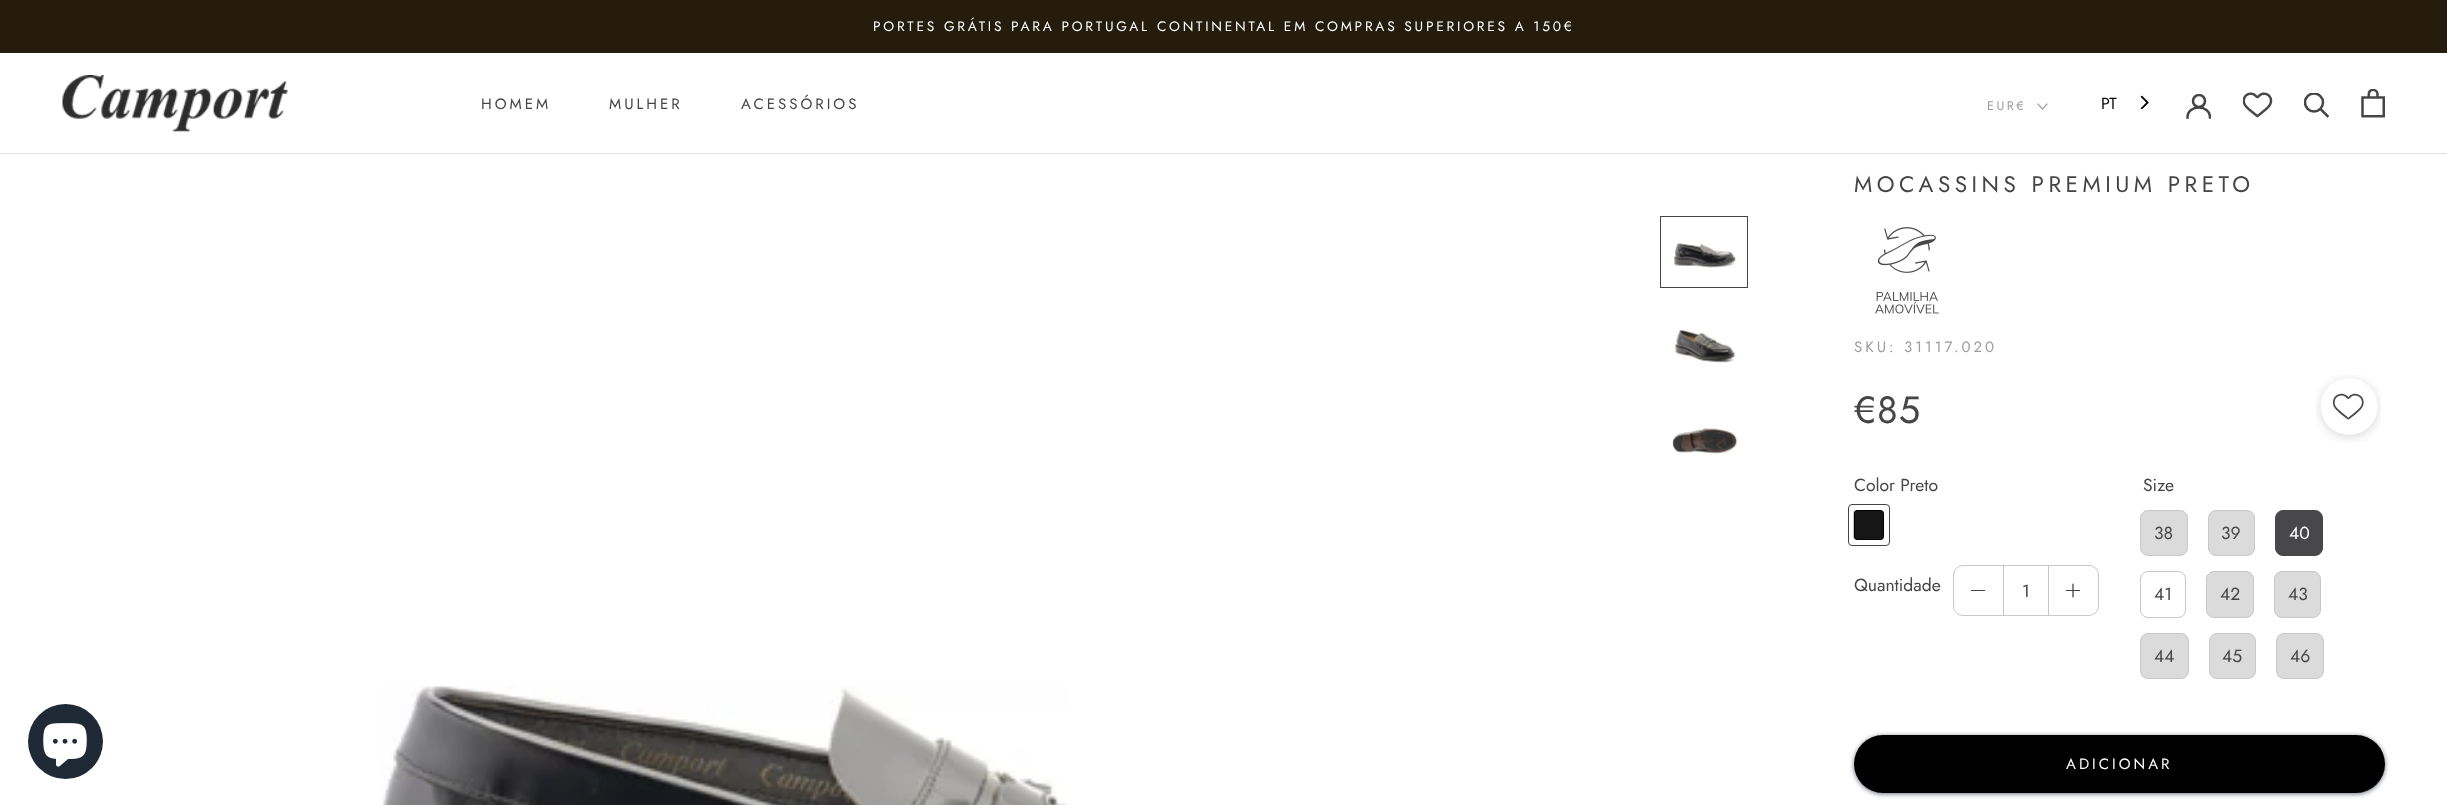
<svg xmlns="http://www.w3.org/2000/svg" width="2447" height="805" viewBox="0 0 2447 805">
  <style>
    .t1 { font: 13.75px Jost; letter-spacing: 2.75px; fill: #fff; }
    .t2 { font: 15px Jost; letter-spacing: 3px; fill: #454545; }
    .t3 { font: 12.5px Jost; letter-spacing: 2.5px; fill: #9d9d9d; }
    .t4 { font: 16px Jost; fill: #000; }
    .t5 { font: 22.5px Jost; letter-spacing: 4.5px; fill: #454545; }
    .t6 { font: 15px Jost; letter-spacing: 3px; fill: #9d9d9d; }
    .t7 { font: 38px Jost; letter-spacing: 1px; fill: #454545; }
    .t8 { font: 17.5px Jost; fill: #454545; }
    .t9 { font: 17.5px Jost; fill: #fff; }
    .t10 { font: 15px Jost; letter-spacing: 3px; fill: #fff; }
  </style>
  <defs>
    <clipPath id="clip1"><rect x="2186" y="94" width="25" height="25"/></clipPath>
    <clipPath id="clip2"><rect x="2304" y="93" width="26" height="26"/></clipPath>
  </defs>
  <rect width="100%" height="100%" fill="#fff"/>
  <circle cx="65.5" cy="741.5" r="37.5" fill="#202a36"/>
  <image x="43" y="723" width="44" height="44" href="images/1.png"/>
  <rect x="0" y="0" width="2447" height="53" fill="#251c0e"/>
  <text x="873" y="31" class="t1">PORTES GRÁTIS PARA PORTUGAL CONTINENTAL EM COMPRAS SUPERIORES A 150€</text>
  <rect x="0" y="153" width="2447" height="1" fill="#e3e3e3"/>
  <image x="62" y="75" width="226" height="57" href="images/2.png"/>
  <text x="481" y="109" class="t2">HOMEM</text>
  <text x="609" y="109" class="t2">MULHER</text>
  <text x="741" y="109" class="t2">ACESSÓRIOS</text>
  <text x="1987" y="110" class="t3">EUR€</text>
  <path d="M2047 104L2042.5 109L2038 104" fill="none" stroke="#9d9d9d" stroke-width="1.2" stroke-linecap="square"/>
  <text x="2101" y="109" class="t4">PT</text>
  <image x="2140" y="95" width="9" height="14" href="images/3.png"/>
  <g clip-path="url(#clip1)">
    <path d="M2187.5 117.5C2187.5 104 2210 104 2210 117.5" fill="none" stroke="#454545" stroke-width="2.5" stroke-linecap="square"/>
    <circle cx="2199" cy="101" r="6" fill="none" stroke="#454545" stroke-width="2.5"/>
  </g>
  <image x="2243" y="92" width="30" height="26" href="images/4.png"/>
  <path d="M2327.5 116L2320.5 109" fill="none" stroke="#454545" stroke-width="2.5" stroke-linecap="square"/>
  <g clip-path="url(#clip2)">
    <circle cx="2314" cy="102.5" r="9" fill="none" stroke="#454545" stroke-width="2.5"/>
  </g>
  <image x="2361" y="89" width="24" height="29" href="images/5.png"/>
  <rect x="1660.5" y="216.5" width="87" height="71" fill="none" stroke="#454545"/>
  <image x="1673" y="243" width="64" height="25" href="images/6.png"/>
  <image x="1674" y="330" width="62" height="33" href="images/7.png"/>
  <image x="1672" y="428" width="66" height="27" href="images/8.png"/>
  <image x="382" y="686" width="688" height="119" href="images/9.png"/>
  <text x="1854" y="192" class="t5">MOCASSINS PREMIUM PRETO</text>
  <image x="1875" y="227" width="64" height="87" href="images/10.png"/>
  <text x="1854" y="352" class="t6">SKU: 31117.020</text>
  <text x="1854" y="423" class="t7">€85</text>
  <image x="2316" y="375" width="65" height="67" href="images/11.png"/>
  <text x="1854" y="491" class="t8">Color Preto</text>
  <image x="1853" y="510" width="31" height="30" href="images/12.png"/>
  <rect x="1854.5" y="510.5" width="29" height="29" rx="3.5" fill="none" stroke="#000"/>
  <rect x="1848.5" y="504.5" width="41" height="41" rx="3.5" fill="none" stroke="#454545"/>
  <text x="1854" y="591" class="t8">Quantidade</text>
  <rect x="1953.5" y="565.5" width="145" height="50" rx="9.5" fill="none" stroke="#c7c7cc"/>
  <rect x="2003" y="566" width="1" height="49" fill="#c7c7cc"/>
  <rect x="1971" y="590" width="14" height="1" fill="#454545"/>
  <text x="2022" y="597" class="t8">1</text>
  <rect x="2048" y="566" width="1" height="49" fill="#c7c7cc"/>
  <path d="M2073 584.5V596.5" fill="none" stroke="#454545" stroke-width="1.3" stroke-linecap="square"/>
  <rect x="2066" y="590" width="14" height="1" fill="#454545"/>
  <text x="2143" y="491" class="t8">Size</text>
  <rect x="2140.5" y="510.5" width="47" height="45" rx="7.5" fill="#dbdbdb" stroke="#c7c7cc"/>
  <text x="2154" y="539" class="t8">38</text>
  <rect x="2208.5" y="510.5" width="46" height="45" rx="7.5" fill="#dbdbdb" stroke="#c7c7cc"/>
  <text x="2221" y="539" class="t8">39</text>
  <rect x="2275.5" y="510.5" width="47" height="45" rx="7.5" fill="#48484a" stroke="#48484a"/>
  <text x="2289" y="539" class="t9">40</text>
  <rect x="2140.5" y="571.5" width="45" height="46" rx="7.5" fill="none" stroke="#c7c7cc"/>
  <text x="2154" y="600" class="t8">41</text>
  <rect x="2206.5" y="571.5" width="47" height="46" rx="7.5" fill="#dbdbdb" stroke="#c7c7cc"/>
  <text x="2220" y="600" class="t8">42</text>
  <rect x="2274.5" y="571.5" width="46" height="46" rx="7.5" fill="#dbdbdb" stroke="#c7c7cc"/>
  <text x="2288" y="600" class="t8">43</text>
  <rect x="2140.5" y="633.5" width="48" height="45" rx="7.5" fill="#dbdbdb" stroke="#c7c7cc"/>
  <text x="2154" y="662" class="t8">44</text>
  <rect x="2209.5" y="633.5" width="46" height="45" rx="7.5" fill="#dbdbdb" stroke="#c7c7cc"/>
  <text x="2222" y="662" class="t8">45</text>
  <rect x="2276.5" y="633.5" width="47" height="45" rx="7.5" fill="#dbdbdb" stroke="#c7c7cc"/>
  <text x="2290" y="662" class="t8">46</text>
  <rect x="1854" y="736" width="531" height="58" rx="29" fill="#1b2437a6" filter="blur(2.5px)"/>
  <rect x="1854" y="735" width="531" height="58" rx="29" fill="#000"/>
  <text x="2066" y="769" class="t10">ADICIONAR</text>
</svg>
